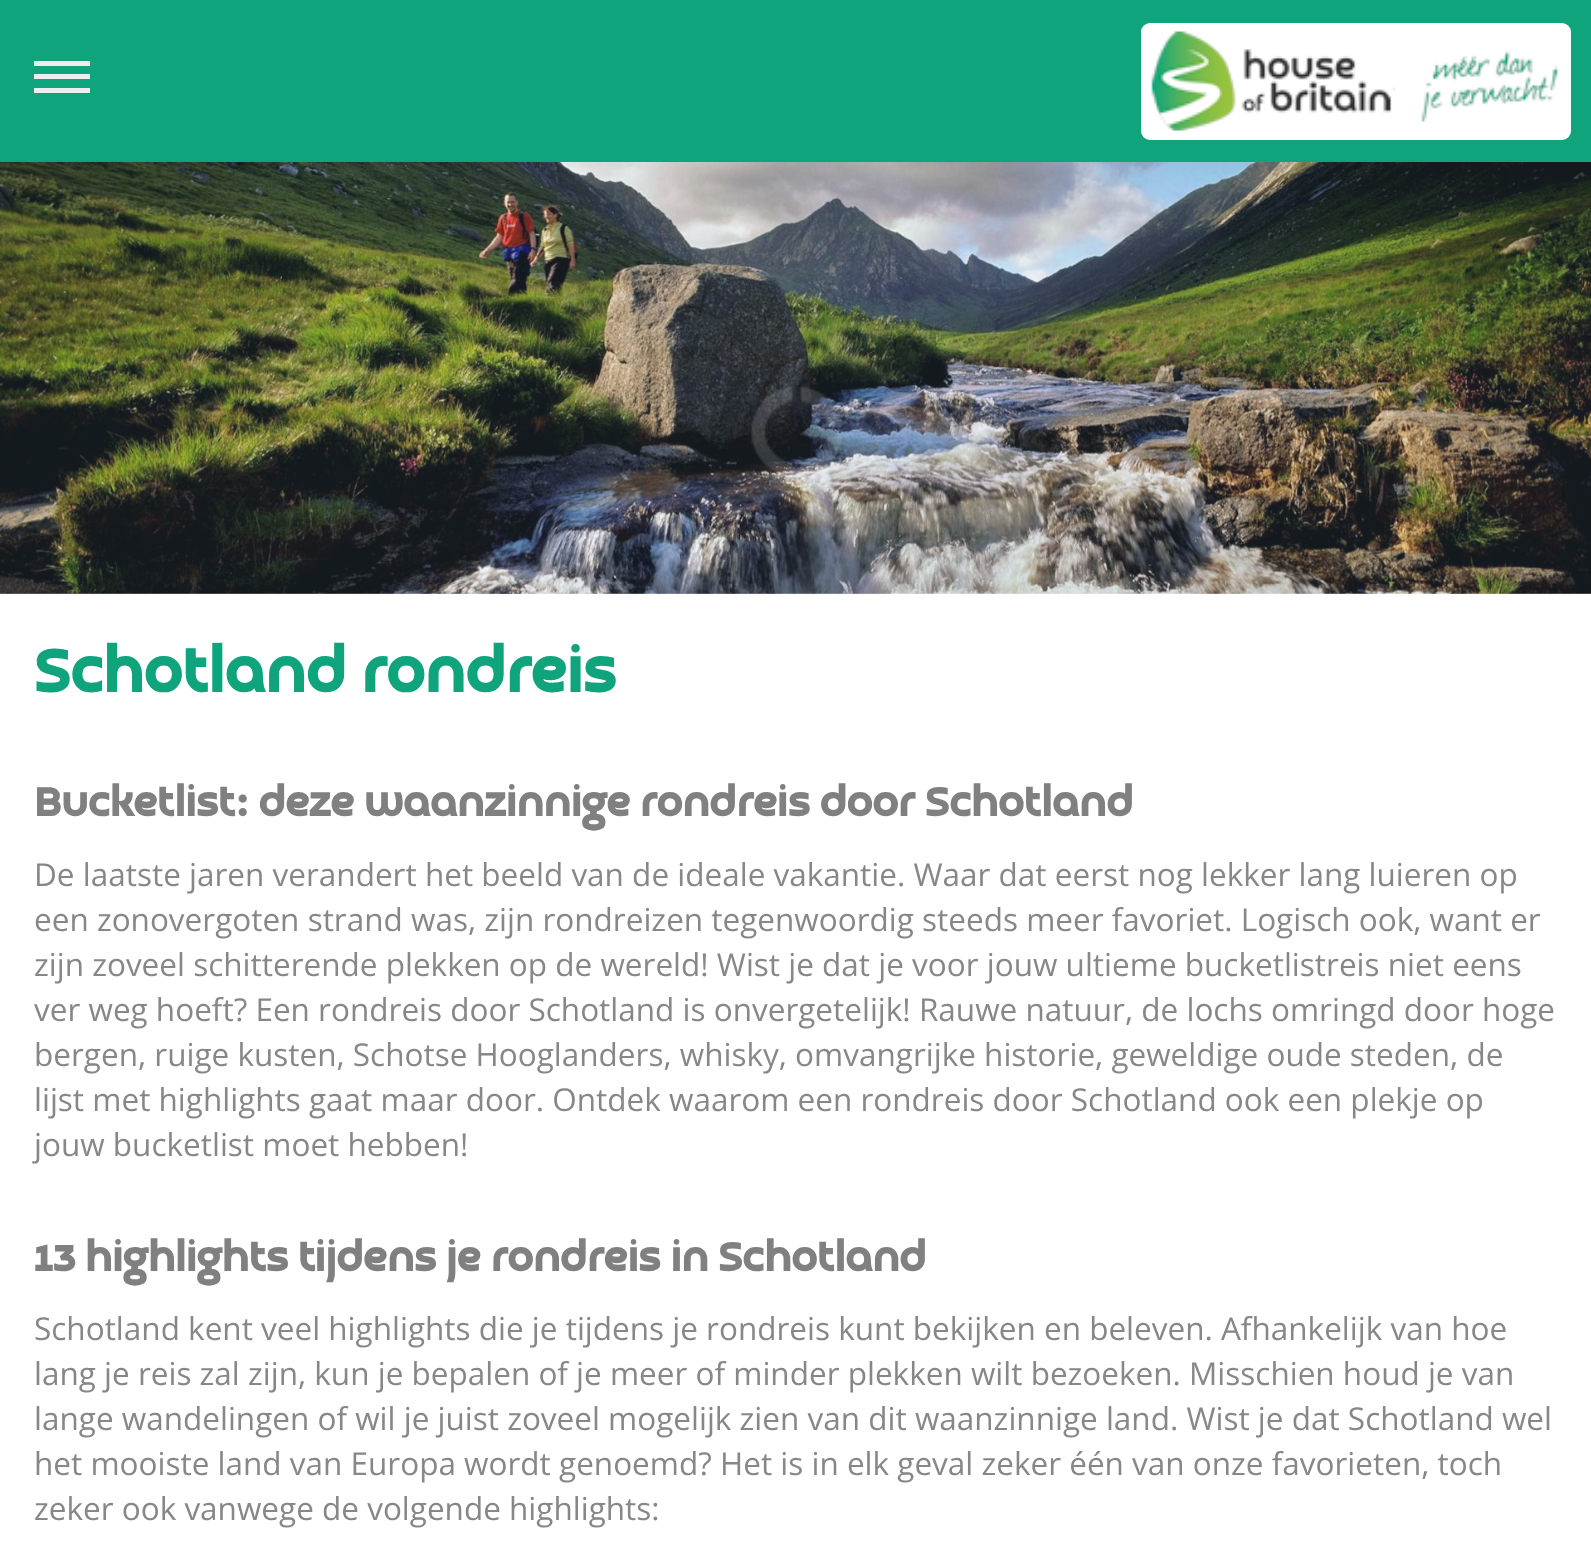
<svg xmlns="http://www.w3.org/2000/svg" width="1591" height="1554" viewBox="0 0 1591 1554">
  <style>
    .t1 { font: bold 67.5px 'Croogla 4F'; fill: #0fa47c; }
    .t2 { font: bold 45px 'Croogla 4F'; fill: #808080; }
    .t3 { font: 31.5px Open Sans; fill: #878787; }
  </style>
  <rect width="100%" height="100%" fill="#fff"/>
  <rect x="0" y="0" width="1591" height="162" fill="#0fa47c"/>
  <rect x="34" y="61" width="56" height="5" fill="#eee"/>
  <rect x="34" y="74" width="56" height="5" fill="#eee"/>
  <rect x="34" y="88" width="56" height="5" fill="#eee"/>
  <rect x="1141" y="23" width="430" height="117" rx="9" fill="#fff"/>
  <image x="1151" y="31" width="407" height="100" href="images/1.png"/>
  <image x="0" y="162" width="1591" height="432" href="images/2.png"/>
  <image x="751" y="386" width="91" height="91" href="images/3.png"/>
  <text x="34" y="692" class="t1">Schotland rondreis</text>
  <text x="34" y="816" class="t2">Bucketlist: deze waanzinnige rondreis door Schotland</text>
  <text x="34" y="886" class="t3">De laatste jaren verandert het beeld van de ideale vakantie. Waar dat eerst nog lekker lang luieren op</text>
  <text x="34" y="931" class="t3">een zonovergoten strand was, zijn rondreizen tegenwoordig steeds meer favoriet. Logisch ook, want er</text>
  <text x="34" y="976" class="t3">zijn zoveel schitterende plekken op de wereld! Wist je dat je voor jouw ultieme bucketlistreis niet eens</text>
  <text x="34" y="1021" class="t3">ver weg hoeft? Een rondreis door Schotland is onvergetelijk! Rauwe natuur, de lochs omringd door hoge</text>
  <text x="34" y="1066" class="t3">bergen, ruige kusten, Schotse Hooglanders, whisky, omvangrijke historie, geweldige oude steden, de</text>
  <text x="34" y="1111" class="t3">lijst met highlights gaat maar door. Ontdek waarom een rondreis door Schotland ook een plekje op</text>
  <text x="34" y="1156" class="t3">jouw bucketlist moet hebben!</text>
  <text x="34" y="1271" class="t2">13 highlights tijdens je rondreis in Schotland</text>
  <text x="34" y="1340" class="t3">Schotland kent veel highlights die je tijdens je rondreis kunt bekijken en beleven. Afhankelijk van hoe</text>
  <text x="34" y="1385" class="t3">lang je reis zal zijn, kun je bepalen of je meer of minder plekken wilt bezoeken. Misschien houd je van</text>
  <text x="34" y="1430" class="t3">lange wandelingen of wil je juist zoveel mogelijk zien van dit waanzinnige land. Wist je dat Schotland wel</text>
  <text x="34" y="1475" class="t3">het mooiste land van Europa wordt genoemd? Het is in elk geval zeker één van onze favorieten, toch</text>
  <text x="34" y="1520" class="t3">zeker ook vanwege de volgende highlights:</text>
</svg>
